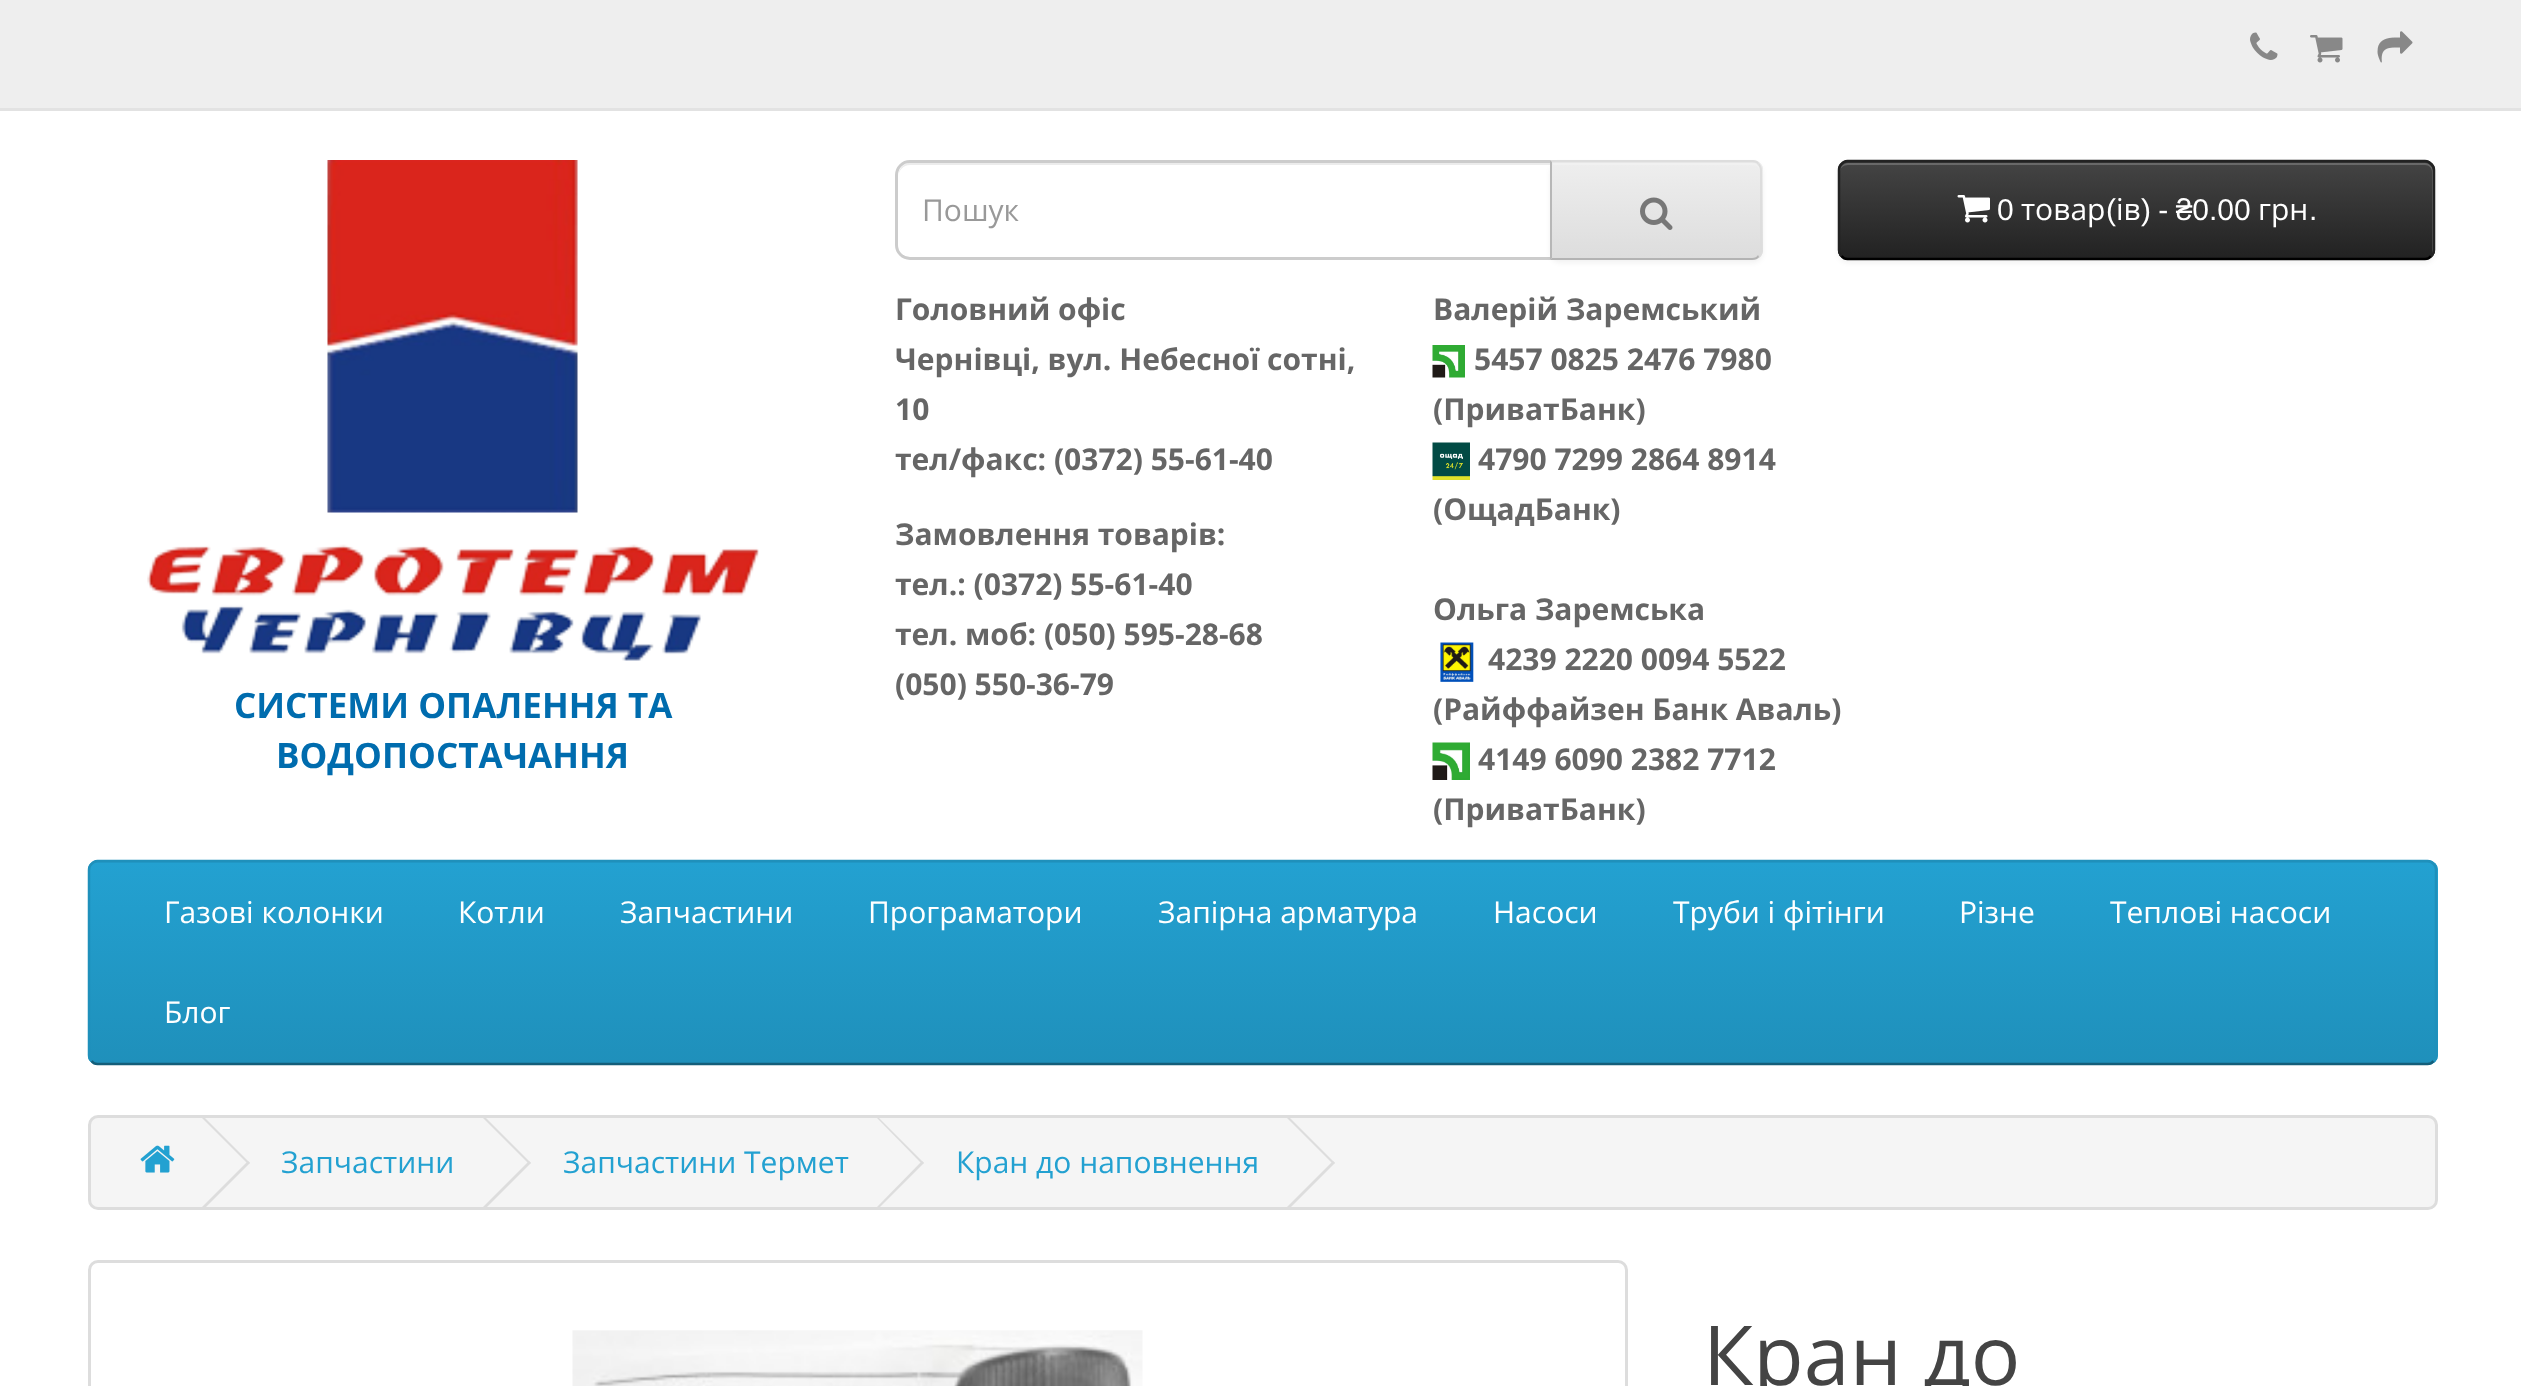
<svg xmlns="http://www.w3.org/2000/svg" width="2521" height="1386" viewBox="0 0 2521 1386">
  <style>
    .t1 { font: bold 35px Open Sans; fill: #006cae; }
    .t2 { font: 30px Open Sans; fill: #999; }
    .t3 { font: 30px Liberation Sans; fill: #fff; }
    .t4 { font: 30px Open Sans; fill: #fff; }
    .t5 { font: bold 30px Open Sans; fill: #666; }
    .t6 { font: 30px Open Sans; fill: #23a1d1; }
    .t7 { font: 82.5px Open Sans; fill: #444; }
  </style>
  <defs>
    <clipPath id="clip1"><path d="M1550 160H1753C1758.5 160 1763 164.5 1763 170V250C1763 255.5 1758.5 260 1753 260H1550Z"/></clipPath>
    <linearGradient id="g1" gradientUnits="userSpaceOnUse" x1="1656" y1="163" x2="1656" y2="258"><stop offset="0" stop-color="#eee"/><stop offset="1" stop-color="#ddd"/></linearGradient>
    <clipPath id="clip2"><rect x="1838" y="160" width="597" height="100" rx="10"/></clipPath>
    <linearGradient id="g2" gradientUnits="userSpaceOnUse" x1="2136" y1="162" x2="2136" y2="258"><stop offset="0" stop-color="#444"/><stop offset="1" stop-color="#222"/></linearGradient>
    <clipPath id="clip3"><rect x="88" y="860" width="2350" height="205" rx="10"/></clipPath>
    <linearGradient id="g3" gradientUnits="userSpaceOnUse" x1="1263" y1="862" x2="1263" y2="1063"><stop offset="0" stop-color="#23a1d1"/><stop offset="1" stop-color="#1f90bb"/></linearGradient>
  </defs>
  <rect width="100%" height="100%" fill="#fff"/>
  <rect x="0" y="0" width="2521" height="108" fill="#eee"/>
  <rect x="0" y="108" width="2521" height="3" fill="#e2e2e2"/>
  <image x="2250" y="32" width="28" height="28" href="images/1.png"/>
  <image x="2310" y="35" width="33" height="28" href="images/2.png"/>
  <image x="2377" y="31" width="36" height="32" href="images/3.png"/>
  <image x="327" y="160" width="251" height="353" href="images/4.png"/>
  <image x="147" y="544" width="612" height="117" href="images/5.png"/>
  <text x="234" y="718" class="t1">СИСТЕМИ ОПАЛЕННЯ ТА</text>
  <text x="276" y="768" class="t1">ВОДОПОСТАЧАННЯ</text>
  <path d="M910 165H1550V163H911C902 163 898 170 898 178C898 171 903 165 910 165Z" fill="#ececec"/>
  <path d="M910 161.5H1551.5V258.5H910C902.5 258.5 896.5 252.5 896.5 245V175C896.5 167.5 902.5 161.5 910 161.5Z" fill="none" stroke="#ccc" stroke-width="3"/>
  <text x="922" y="221" class="t2">Пошук</text>
  <rect x="1550" y="163" width="213" height="100" rx="10" fill="#0000000d" filter="blur(2.5px)"/>
  <path d="M1550 160H1753C1758.5 160 1763 164.5 1763 170V250C1763 255.5 1758.5 260 1753 260H1550Z" fill="#e7e7e7"/>
  <g clip-path="url(#clip1)">
    <rect x="1552" y="163" width="211" height="95" fill="url(#g1)"/>
  </g>
  <path d="M1553 163V165H1752C1757 165 1760 168 1760 172C1760 167 1757 163 1752 163Z" fill="#f1f1f1"/>
  <path d="M1550 160L1552 162H1752C1755 162 1757 163 1758 165L1759 163C1758 161 1755 160 1752 160Z" fill="#ddd"/>
  <path d="M1759 163C1761 165 1762 167 1762 170V250C1762 253 1761 255 1759 257L1758 255C1759 254 1760 252 1760 250V170C1760 168 1759 166 1758 165Z" fill="#ddd"/>
  <path d="M1752 260C1755 260 1758 259 1759 257L1758 255C1757 257 1755 258 1752 258H1552L1550 260Z" fill="#b3b3b3"/>
  <path d="M1550 160V260L1552 258V162Z" fill="#b7b7b7"/>
  <image x="1640" y="197" width="33" height="33" href="images/6.png"/>
  <rect x="1838" y="163" width="597" height="100" rx="10" fill="#0000000d" filter="blur(2.5px)"/>
  <rect x="1838" y="160" width="597" height="100" rx="10" fill="#363636"/>
  <g clip-path="url(#clip2)">
    <rect x="1838" y="163" width="597" height="95" fill="url(#g2)"/>
  </g>
  <path d="M1848 165H2425C2429 165 2432 168 2432 172V254C2433 253 2433 252 2433 250V171C2433 167 2429 163 2425 163H1848C1844 163 1840 167 1840 171V172C1840 168 1843 165 1848 165Z" fill="#ffffff33"/>
  <path d="M2431 256C2429.5 258 2427.5 259 2425 259H1847.5C1845 259 1843 258 1841.5 256" fill="none" stroke="#000" stroke-width="2.5"/>
  <path d="M1841.5 256C1839.5 254.5 1839 252.5 1839 250V170C1839 167.5 1839.5 165.5 1841.5 164C1843 162 1845 161 1847.5 161H2425C2427.5 161 2429.5 162 2431 164C2433 165.5 2434 167.5 2434 170V250C2434 252.5 2433 254.5 2431 256" fill="none" stroke="#222" stroke-width="2.5"/>
  <image x="1957" y="195" width="33" height="28" href="images/7.png"/>
  <text x="1997" y="220" class="t3">0</text>
  <text x="2021" y="220" class="t4">товар</text>
  <text x="2106" y="220" class="t3">(</text>
  <text x="2116" y="220" class="t4">ів</text>
  <text x="2141" y="220" word-spacing="-1" class="t3">) - ₴0.00</text>
  <text x="2258" y="220" class="t4">грн</text>
  <text x="2309" y="220" class="t3">.</text>
  <text x="895" y="320" class="t5">Головний офіс</text>
  <text x="895" y="370" class="t5">Чернівці, вул. Небесної сотні,</text>
  <text x="895" y="420" class="t5">10</text>
  <text x="895" y="470" class="t5">тел/факс: (0372) 55-61-40</text>
  <text x="895" y="545" class="t5">Замовлення товарів:</text>
  <text x="895" y="595" class="t5">тел.: (0372) 55-61-40</text>
  <text x="895" y="645" class="t5">тел. моб: (050) 595-28-68</text>
  <text x="895" y="695" class="t5">(050) 550-36-79</text>
  <text x="1433" y="320" class="t5">Валерій Заремський</text>
  <image x="1432" y="345" width="33" height="33" href="images/8.png"/>
  <text x="1474" y="370" class="t5">5457 0825 2476 7980</text>
  <text x="1433" y="420" class="t5">(ПриватБанк)</text>
  <image x="1432" y="442" width="38" height="38" href="images/9.png"/>
  <text x="1478" y="470" class="t5">4790 7299 2864 8914</text>
  <text x="1433" y="520" class="t5">(ОщадБанк)</text>
  <text x="1433" y="620" class="t5">Ольга Заремська</text>
  <image x="1440" y="642" width="34" height="40" href="images/10.png"/>
  <text x="1488" y="670" class="t5">4239 2220 0094 5522</text>
  <text x="1433" y="720" class="t5">(Райффайзен Банк Аваль)</text>
  <image x="1432" y="742" width="38" height="38" href="images/11.png"/>
  <text x="1478" y="770" class="t5">4149 6090 2382 7712</text>
  <text x="1433" y="820" class="t5">(ПриватБанк)</text>
  <rect x="88" y="860" width="2350" height="205" rx="10" fill="#229ac8"/>
  <g clip-path="url(#clip3)">
    <rect x="88" y="863" width="2350" height="200" fill="url(#g3)"/>
  </g>
  <path d="M2433.5 1061C2432 1063 2430 1064 2427.5 1064H97.5C95 1064 93 1063 91.5 1061" fill="none" stroke="#145e7a" stroke-width="2.5"/>
  <path d="M91.5 1061C89.5 1059.5 89 1057.5 89 1055V870C89 867.5 89.5 865.5 91.5 864C93 862 95 861 97.5 861H2427.5C2430 861 2432 862 2433.5 864C2435.5 865.5 2436 867.5 2436 870V1055C2436 1057.5 2435.5 1059.5 2433.5 1061" fill="none" stroke="#1f90bb" stroke-width="2.5"/>
  <text x="164" y="923" class="t4">Газові колонки</text>
  <text x="458" y="923" class="t4">Котли</text>
  <text x="620" y="923" class="t4">Запчастини</text>
  <text x="868" y="923" class="t4">Програматори</text>
  <text x="1158" y="923" class="t4">Запірна арматура</text>
  <text x="1493" y="923" class="t4">Насоси</text>
  <text x="1673" y="923" class="t4">Труби і фітінги</text>
  <text x="1959" y="923" class="t4">Різне</text>
  <text x="2110" y="923" class="t4">Теплові насоси</text>
  <text x="164" y="1023" class="t4">Блог</text>
  <rect x="89.5" y="1116.5" width="2347" height="92" rx="8.5" fill="#f5f5f5" stroke="#ddd" stroke-width="3"/>
  <image x="140" y="1145" width="35" height="28" href="images/12.png"/>
  <path d="M202 1118L204 1117L250 1163L248 1164Z" fill="#ddd"/>
  <path d="M202 1207L248 1161L250 1163L204 1209Z" fill="#ddd"/>
  <text x="281" y="1173" class="t6">Запчастини</text>
  <path d="M483 1118L485 1117L531 1163L529 1164Z" fill="#ddd"/>
  <path d="M483 1207L529 1161L531 1163L485 1209Z" fill="#ddd"/>
  <text x="563" y="1173" class="t6">Запчастини Термет</text>
  <path d="M877 1118L878 1117L924 1163L922 1164Z" fill="#ddd"/>
  <path d="M877 1207L922 1161L924 1163L878 1209Z" fill="#ddd"/>
  <text x="956" y="1173" class="t6">Кран до наповнення</text>
  <path d="M1287 1118L1289 1117L1335 1163L1333 1164Z" fill="#ddd"/>
  <path d="M1287 1207L1333 1161L1335 1163L1289 1209Z" fill="#ddd"/>
  <rect x="89.5" y="1261.5" width="1537" height="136" rx="8.5" fill="none" stroke="#ddd" stroke-width="3"/>
  <image x="572" y="1330" width="571" height="56" href="images/13.png"/>
  <text x="1703" y="1385" class="t7">Кран до</text>
</svg>
